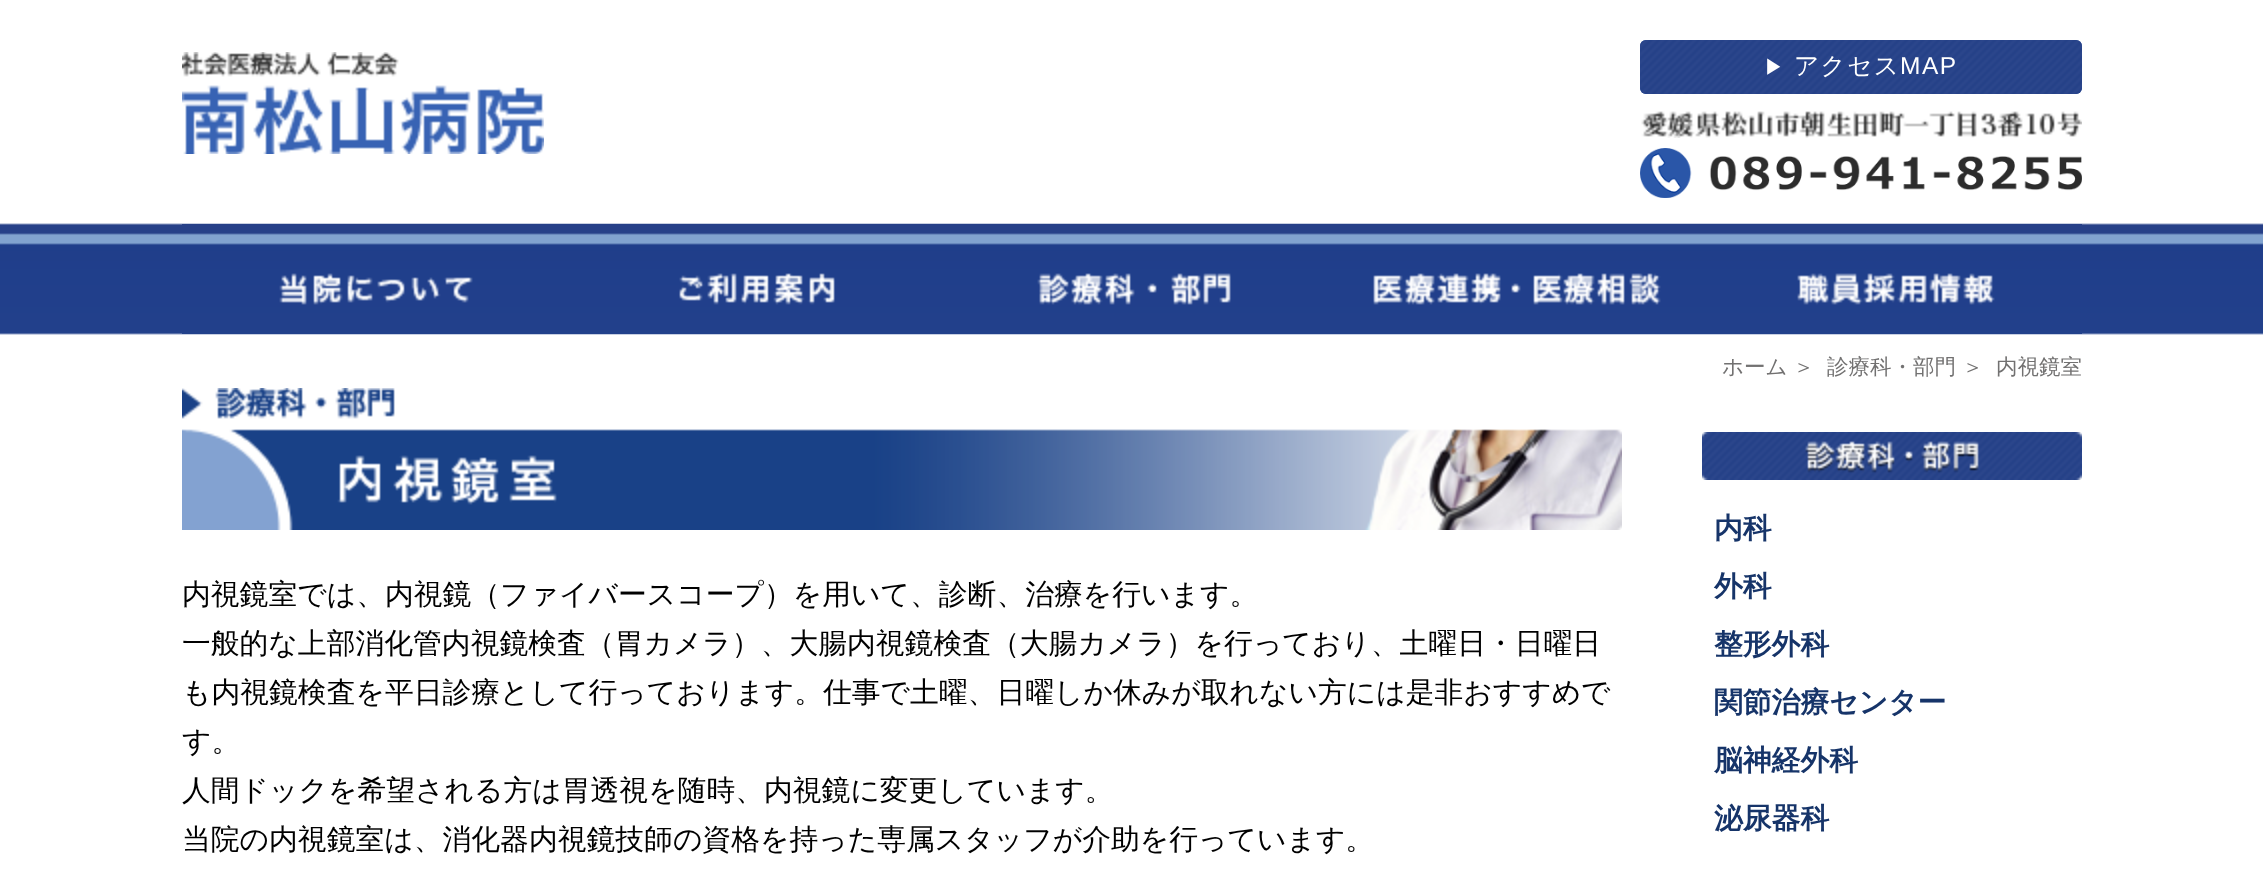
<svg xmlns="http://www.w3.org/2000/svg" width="2263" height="878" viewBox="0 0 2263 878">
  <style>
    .t1 { font: 500 20px WenQuanYi Zen Hei; letter-spacing: 1.5px; fill: #fff; }
    .t2 { font: 500 24.5px WenQuanYi Zen Hei; letter-spacing: 1.5px; fill: #fff; }
    .t3 { font: 24.5px Liberation Sans; letter-spacing: 1.5px; fill: #fff; }
    .t4 { font: 500 21.5px WenQuanYi Zen Hei; fill: #727171; }
    .t5 { font: 500 28.8px WenQuanYi Zen Hei; fill: #000; }
    .t6 { font: bold 28.8px WenQuanYi Zen Hei; fill: #163469; }
  </style>
  <rect width="100%" height="100%" fill="#fff"/>
  <image x="0" y="223" width="2263" height="112" href="images/1.png"/>
  <image x="182" y="52" width="362" height="102" href="images/2.png"/>
  <image x="1640" y="40" width="442" height="54" href="images/3.png"/>
  <image x="1640" y="40" width="442" height="54" href="images/4.png"/>
  <text x="1764" y="74" class="t1">▶</text>
  <text x="1794" y="74" class="t2">アクセス</text>
  <text x="1900" y="74" class="t3">MAP</text>
  <image x="1641" y="111" width="441" height="27" href="images/5.png"/>
  <image x="1640" y="148" width="442" height="50" href="images/6.png"/>
  <image x="182" y="224" width="380" height="19" href="images/7.png"/>
  <image x="182" y="243" width="380" height="91" href="images/8.png"/>
  <image x="562" y="224" width="380" height="19" href="images/7.png"/>
  <image x="562" y="243" width="380" height="91" href="images/9.png"/>
  <image x="942" y="224" width="380" height="19" href="images/7.png"/>
  <image x="942" y="243" width="380" height="91" href="images/10.png"/>
  <image x="1322" y="224" width="380" height="19" href="images/7.png"/>
  <image x="1322" y="243" width="380" height="91" href="images/11.png"/>
  <image x="1702" y="224" width="380" height="19" href="images/7.png"/>
  <image x="1702" y="243" width="380" height="91" href="images/12.png"/>
  <text x="1722" y="374" class="t4">ホーム</text>
  <text x="1793" y="374" class="t4">＞</text>
  <text x="1827" y="374" class="t4">診療科・部門</text>
  <text x="1962" y="374" class="t4">＞</text>
  <text x="1996" y="374" class="t4">内視鏡室</text>
  <image x="182" y="388" width="1440" height="142" href="images/13.png"/>
  <text x="182" y="604" class="t5">内視鏡室では、内視鏡（ファイバースコープ）を用いて、診断、治療を行います。</text>
  <text x="182" y="653" class="t5">一般的な上部消化管内視鏡検査（胃カメラ）、大腸内視鏡検査（大腸カメラ）を行っており、土曜日・日曜日</text>
  <text x="182" y="702" class="t5">も内視鏡検査を平日診療として行っております。仕事で土曜、日曜しか休みが取れない方には是非おすすめで</text>
  <text x="182" y="751" class="t5">す。</text>
  <text x="182" y="800" class="t5">人間ドックを希望される方は胃透視を随時、内視鏡に変更しています。</text>
  <text x="182" y="849" class="t5">当院の内視鏡室は、消化器内視鏡技師の資格を持った専属スタッフが介助を行っています。</text>
  <image x="1702" y="432" width="380" height="48" href="images/14.png"/>
  <text x="1714" y="538" class="t6">内科</text>
  <text x="1714" y="596" class="t6">外科</text>
  <text x="1714" y="654" class="t6">整形外科</text>
  <text x="1714" y="712" class="t6">関節治療センター</text>
  <text x="1714" y="770" class="t6">脳神経外科</text>
  <text x="1714" y="828" class="t6">泌尿器科</text>
</svg>
